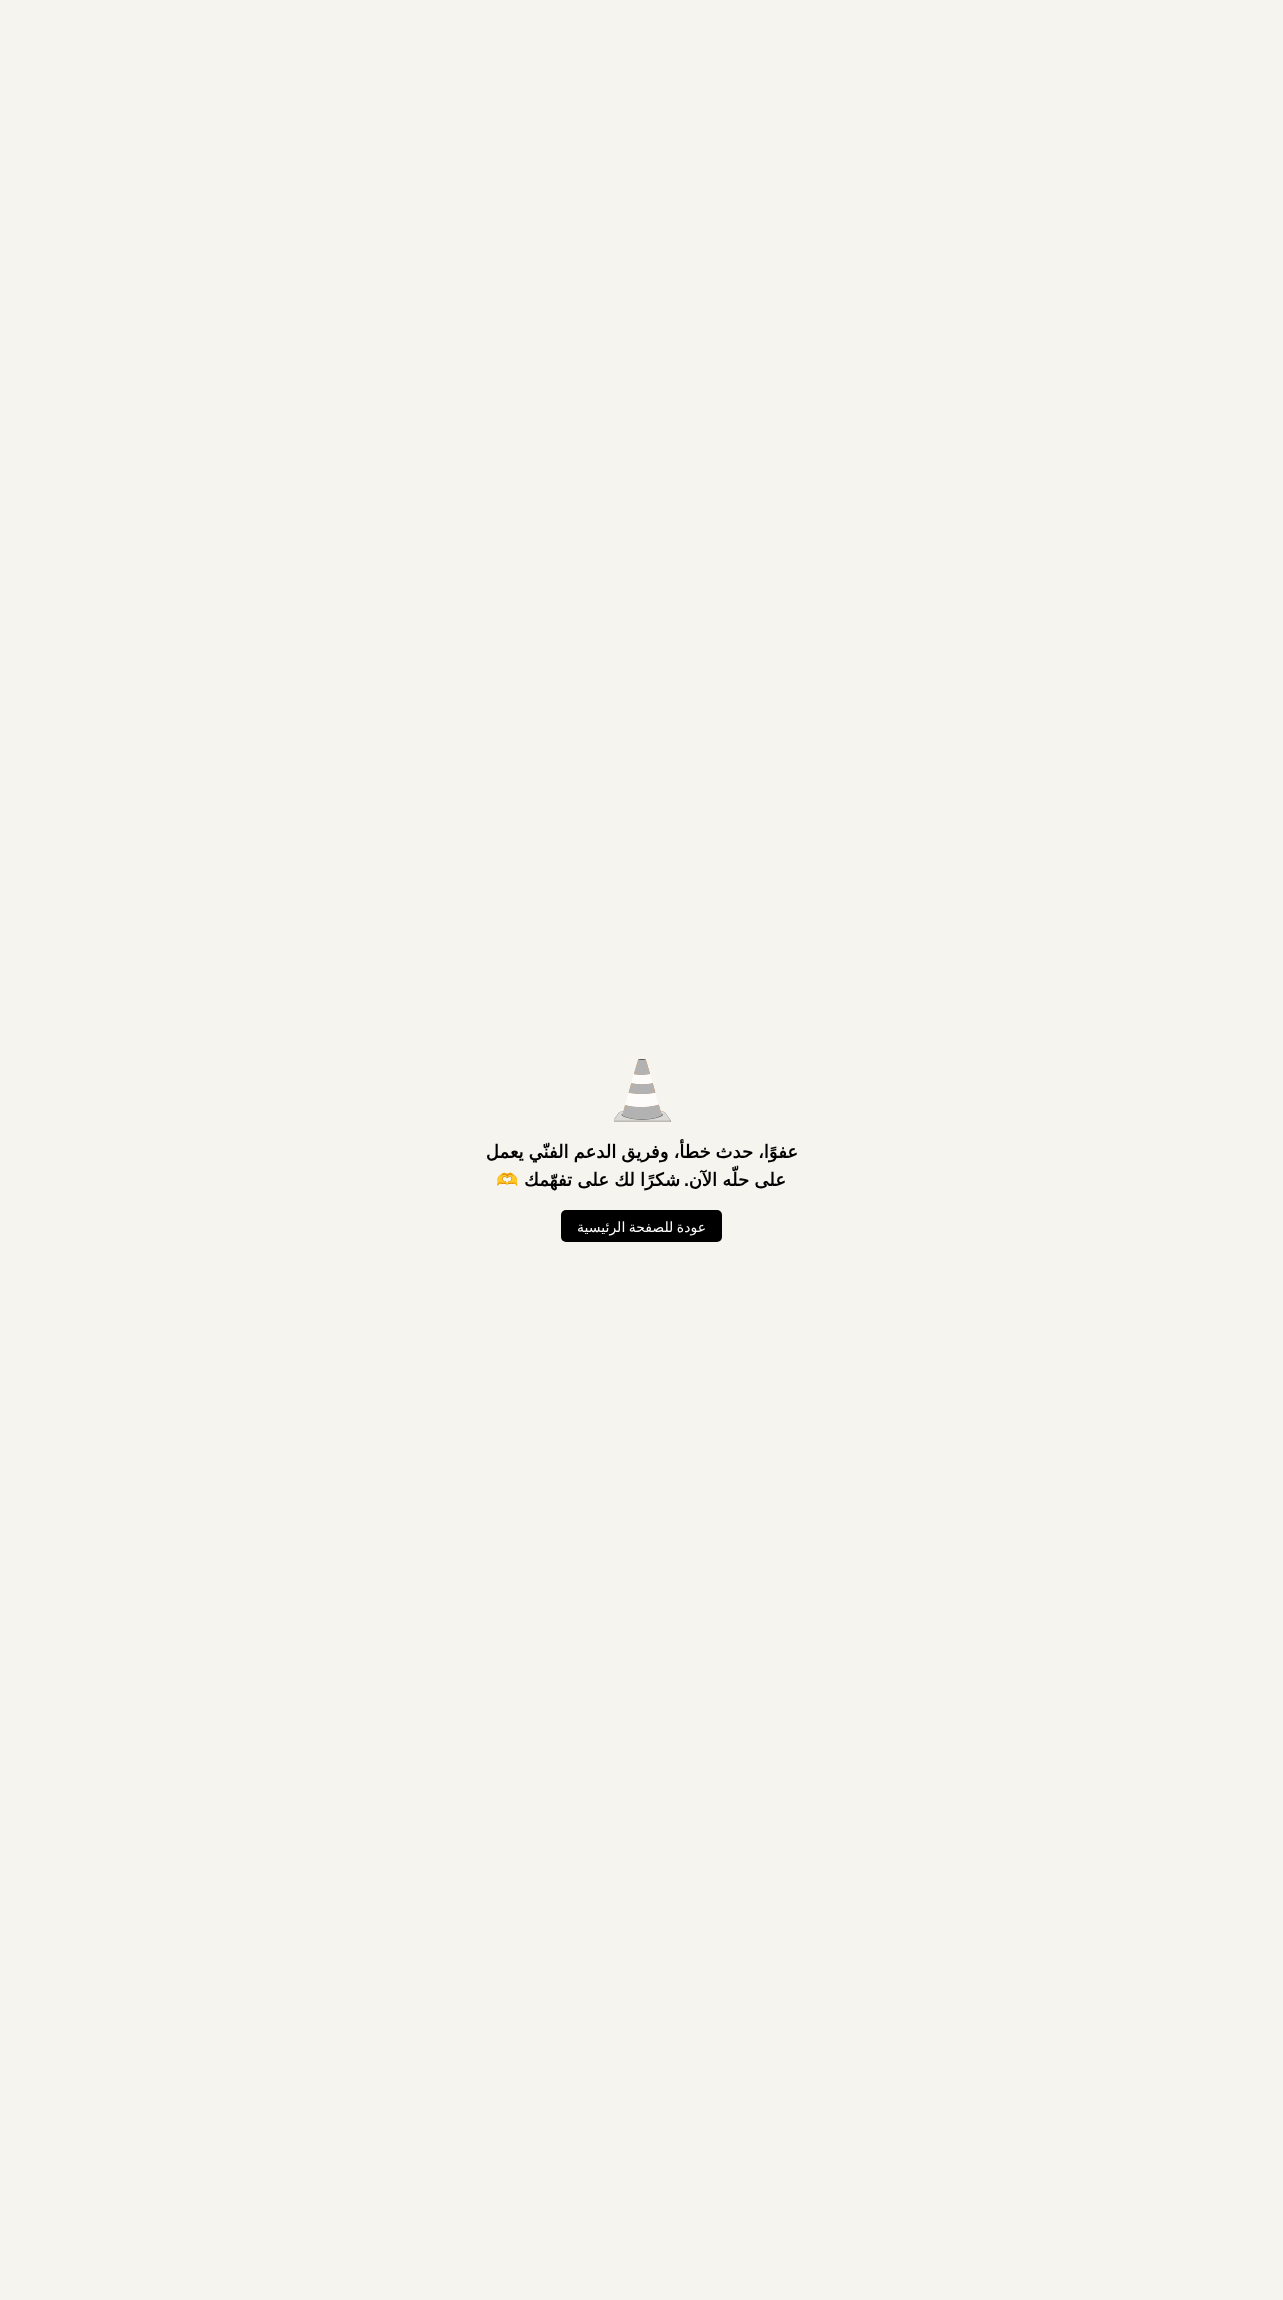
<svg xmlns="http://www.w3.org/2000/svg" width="1283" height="2300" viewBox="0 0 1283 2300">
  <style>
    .t1 { font: bold 18px DejaVu Sans; direction: rtl; fill: #000; }
    .t2 { font: bold 18px Liberation Sans; direction: rtl; fill: #000; }
    .t3 { font: bold 18px Noto Color Emoji; direction: rtl; fill: #000; }
    .t4 { font: 14px DejaVu Sans; direction: rtl; fill: #fff; }
  </style>
  <rect width="100%" height="100%" fill="#f6f4ee"/>
  <image x="614" y="1059" width="57" height="63" href="images/1.png"/>
  <text x="798" y="1158" word-spacing="-0.75" class="t1">عفوًا، حدث خطأ، وفريق الدعم الفنّي يعمل</text>
  <text x="786" y="1186" word-spacing="-0.5" class="t1">على حلّه الآن</text>
  <text x="689" y="1186" class="t2">.</text>
  <text x="680" y="1186" word-spacing="-0.5" class="t1">شكرًا لك على تفهّمك</text>
  <text x="519" y="1186" class="t3">🫶</text>
  <rect x="561" y="1210" width="161" height="32" rx="5" fill="#000"/>
  <text x="706" y="1232" word-spacing="-1" class="t4">عودة للصفحة الرئيسية</text>
</svg>
